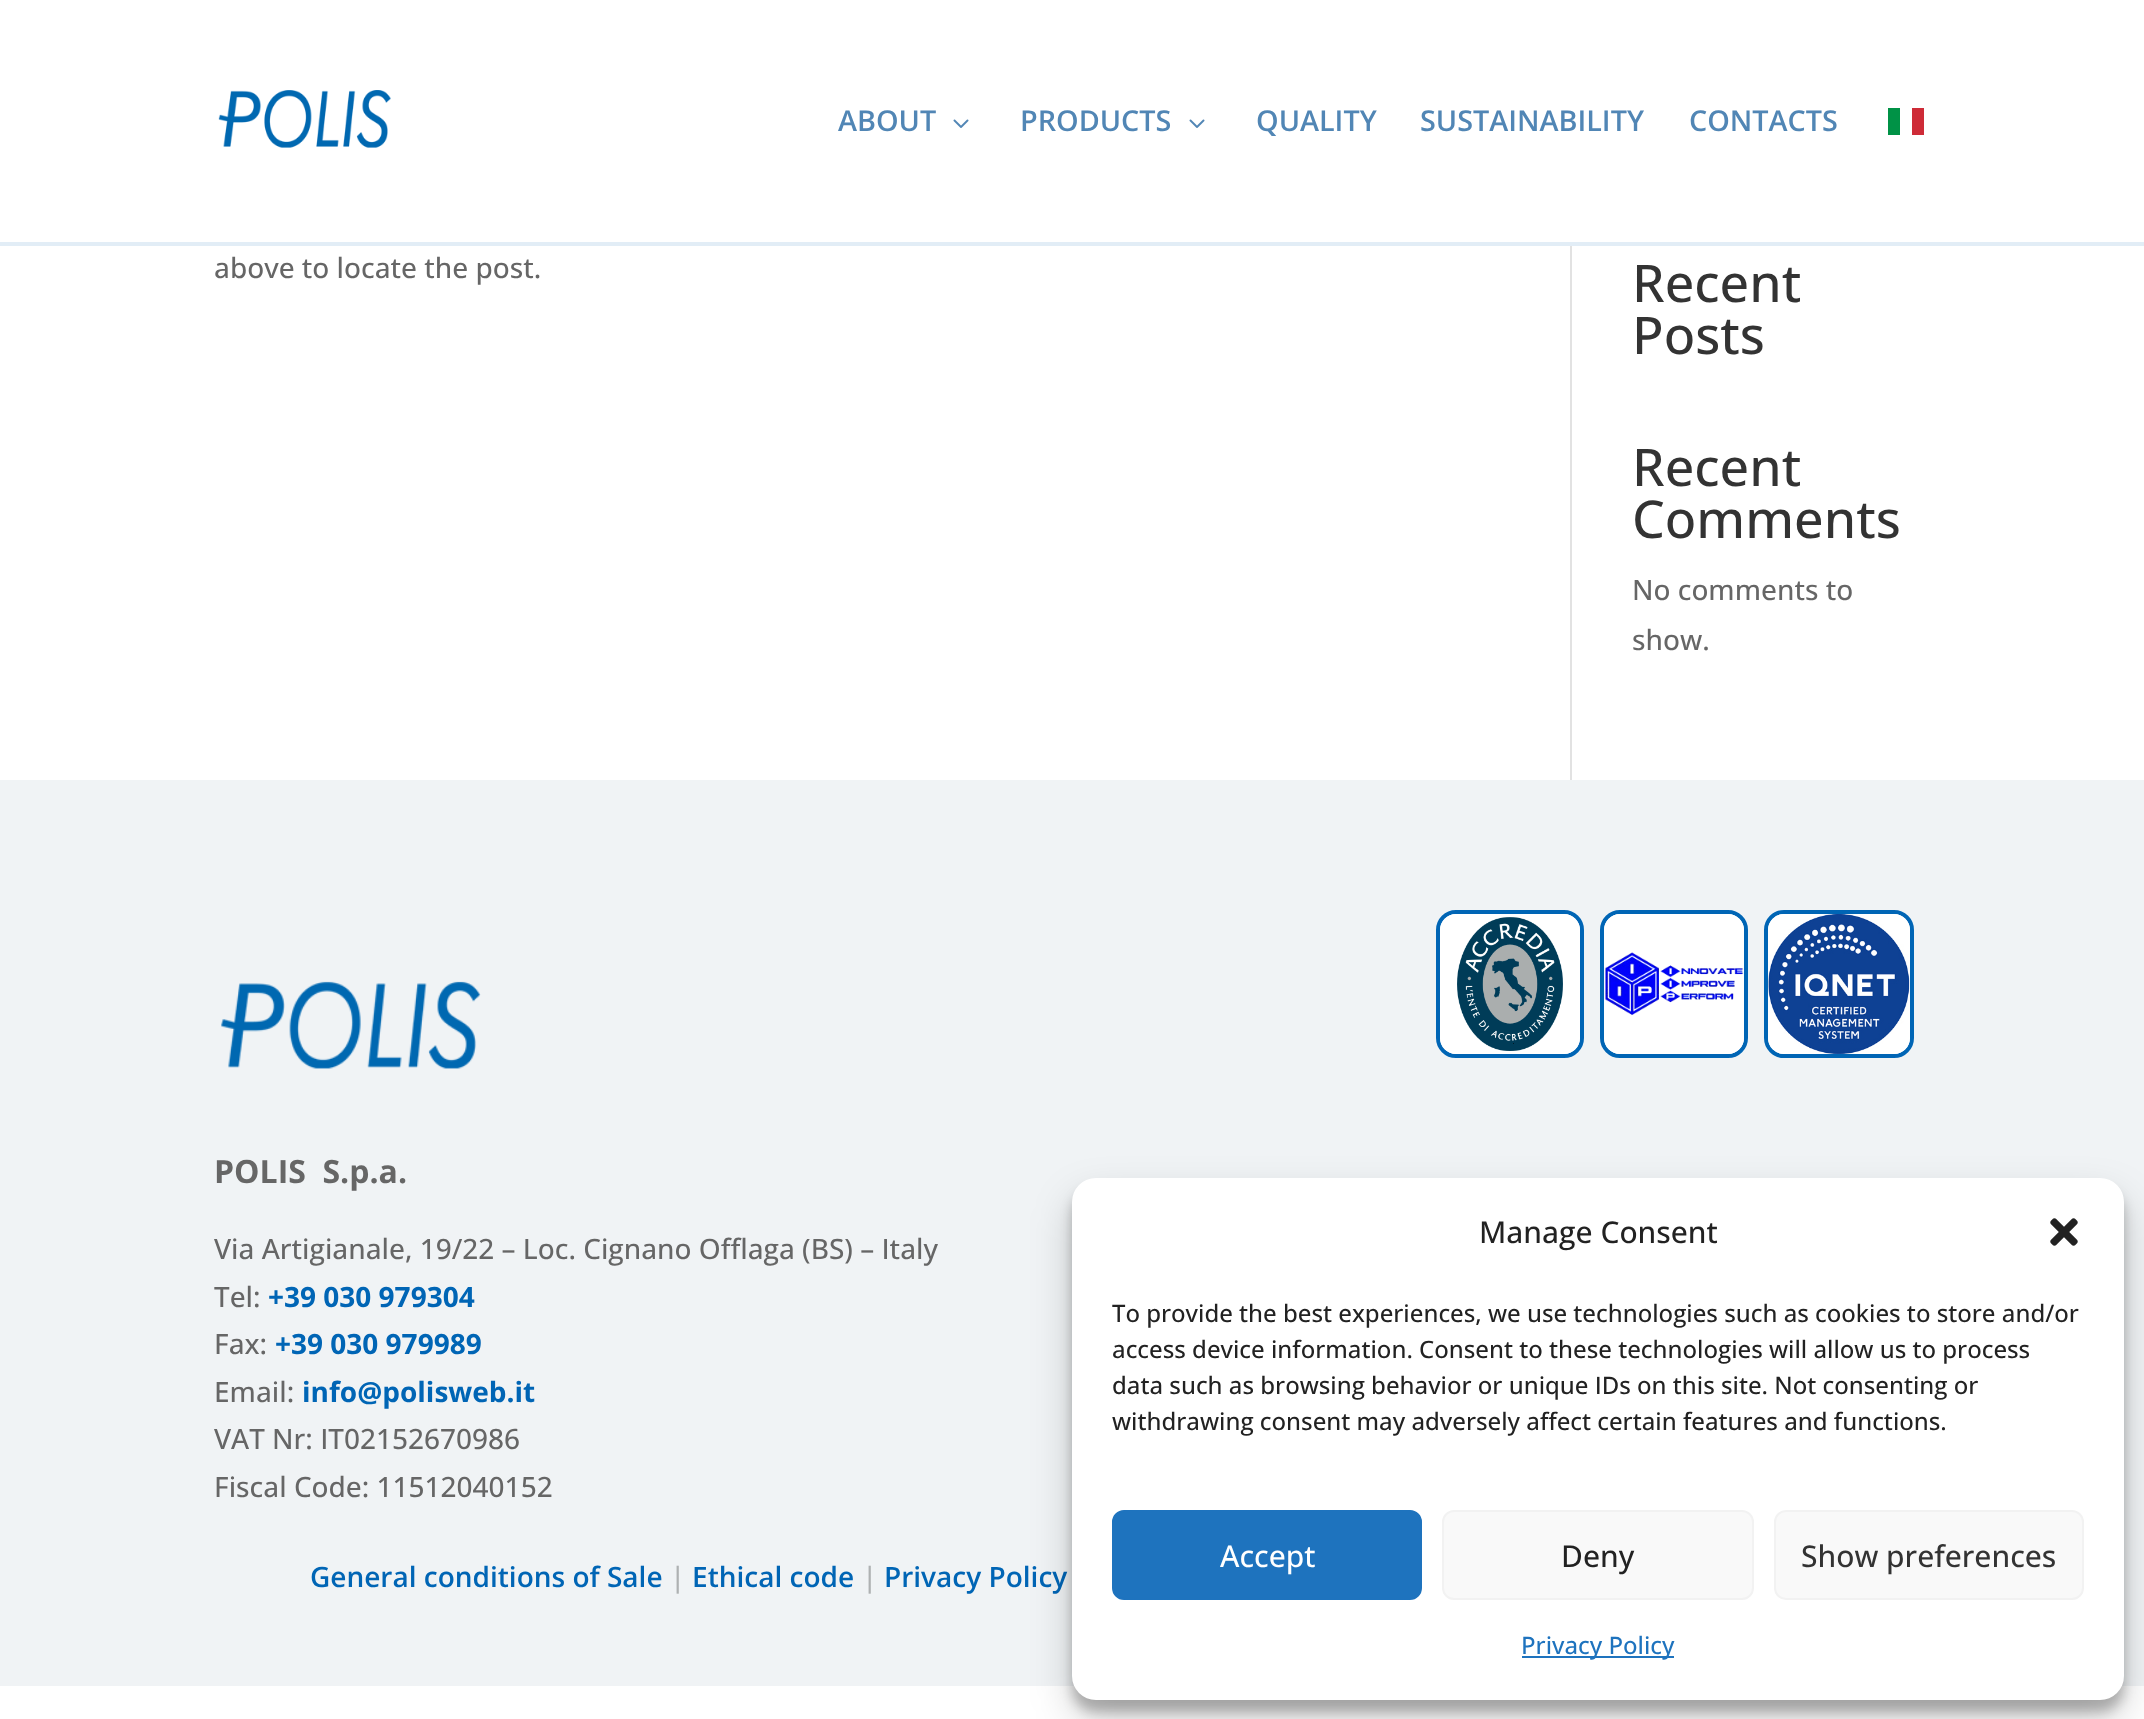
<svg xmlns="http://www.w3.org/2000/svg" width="2144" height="1719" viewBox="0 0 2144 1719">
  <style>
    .t1 { font: 600 28.75px Open Sans; fill: #5186b5; }
    .t2 { font: 500 28px Open Sans; fill: #666; }
    .t3 { font: 500 52px Open Sans; fill: #333; }
    .t4 { font: bold 32px Open Sans; fill: #666; }
    .t5 { font: bold 28px Open Sans; fill: #0065b5; }
    .t6 { font: 600 28px Open Sans; fill: #0065b5; }
    .t7 { font: 500 28px Open Sans; fill: #aeb1b2; }
    .t8 { font: 500 30px Open Sans; fill: #222; }
    .t9 { font: 500 24px Open Sans; fill: #222; }
    .t10 { font: 500 30px Open Sans; fill: #fff; }
    .t11 { font: 500 30px Open Sans; fill: #333; }
    .t12 { font: 500 24px Open Sans; fill: #1e73be; }
  </style>
  <rect width="100%" height="100%" fill="#fff"/>
  <rect x="0" y="242" width="2144" height="4" fill="#e2edf6"/>
  <image x="218" y="90" width="173" height="58" href="images/1.png"/>
  <text x="838" y="131" class="t1">ABOUT</text>
  <image x="953" y="119" width="16" height="9" href="images/2.png"/>
  <text x="1020" y="131" class="t1">PRODUCTS</text>
  <image x="1189" y="119" width="16" height="9" href="images/2.png"/>
  <text x="1256" y="131" class="t1">QUALITY</text>
  <text x="1420" y="131" class="t1">SUSTAINABILITY</text>
  <text x="1689" y="131" class="t1">CONTACTS</text>
  <rect x="1888" y="108" width="12" height="27" fill="#009246"/>
  <rect x="1912" y="108" width="12" height="27" fill="#ce2b37"/>
  <rect x="1570" y="246" width="2" height="534" fill="#e2e2e2"/>
  <text x="214" y="278" class="t2">above to locate the post.</text>
  <text x="1632" y="302" class="t3">Recent</text>
  <text x="1632" y="354" class="t3">Posts</text>
  <text x="1632" y="486" class="t3">Recent</text>
  <text x="1632" y="538" class="t3">Comments</text>
  <text x="1632" y="600" class="t2">No comments to</text>
  <text x="1632" y="650" class="t2">show.</text>
  <rect x="0" y="780" width="2144" height="906" fill="#f0f3f5"/>
  <rect x="1438" y="912" width="144" height="144" rx="18" fill="none" stroke="#0065b5" stroke-width="4"/>
  <image x="1440" y="914" width="140" height="140" href="images/3.png"/>
  <rect x="1602" y="912" width="144" height="144" rx="18" fill="none" stroke="#0065b5" stroke-width="4"/>
  <image x="1604" y="914" width="140" height="140" href="images/4.png"/>
  <rect x="1766" y="912" width="146" height="144" rx="18" fill="none" stroke="#0065b5" stroke-width="4"/>
  <image x="1768" y="914" width="142" height="140" href="images/5.png"/>
  <image x="221" y="981" width="260" height="88" href="images/6.png"/>
  <text x="214" y="1183" class="t4" xml:space="preserve">POLIS  S.p.a.</text>
  <text x="214" y="1259" class="t2">Via Artigianale, 19/22 – Loc. Cignano Offlaga (BS) – Italy</text>
  <text x="214" y="1307" class="t2">Tel:</text>
  <text x="268" y="1307" class="t5">+39 030 979304</text>
  <text x="214" y="1354" class="t2">Fax:</text>
  <text x="275" y="1354" class="t5">+39 030 979989</text>
  <text x="214" y="1402" class="t2">Email:</text>
  <text x="302" y="1402" class="t5">info@polisweb.it</text>
  <text x="214" y="1449" class="t2">VAT Nr: IT02152670986</text>
  <text x="214" y="1497" class="t2">Fiscal Code: 11512040152</text>
  <text x="310" y="1587" class="t6">General conditions of Sale</text>
  <text x="670" y="1587" class="t7">|</text>
  <text x="692" y="1587" class="t6">Ethical code</text>
  <text x="862" y="1587" class="t7">|</text>
  <text x="884" y="1587" class="t6">Privacy Policy</text>
  <rect x="1072" y="1190" width="1052" height="522" rx="24" fill="#0000003b" filter="blur(6px)"/>
  <rect x="1072" y="1198" width="1052" height="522" rx="24" fill="#00000030" filter="blur(20px)"/>
  <rect x="1072" y="1178" width="1052" height="522" rx="24" fill="#fff"/>
  <text x="1479" y="1243" class="t8">Manage Consent</text>
  <image x="2050" y="1218" width="28" height="28" href="images/7.png"/>
  <text x="1112" y="1322" class="t9">To provide the best experiences, we use technologies such as cookies to store and/or</text>
  <text x="1112" y="1358" class="t9">access device information. Consent to these technologies will allow us to process</text>
  <text x="1112" y="1394" class="t9">data such as browsing behavior or unique IDs on this site. Not consenting or</text>
  <text x="1112" y="1430" class="t9">withdrawing consent may adversely affect certain features and functions.</text>
  <rect x="1113" y="1511" width="308" height="88" rx="11" fill="#1e73be" stroke="#1e73be" stroke-width="2"/>
  <text x="1220" y="1567" class="t10">Accept</text>
  <rect x="1443" y="1511" width="310" height="88" rx="11" fill="#f9f9f9" stroke="#f2f2f2" stroke-width="2"/>
  <text x="1561" y="1567" class="t8">Deny</text>
  <rect x="1775" y="1511" width="308" height="88" rx="11" fill="#f9f9f9" stroke="#f2f2f2" stroke-width="2"/>
  <text x="1801" y="1567" class="t11">Show preferences</text>
  <rect x="1522" y="1656" width="152" height="2" fill="#1e73be"/>
  <text x="1521" y="1654" class="t12">Privacy Policy</text>
</svg>
